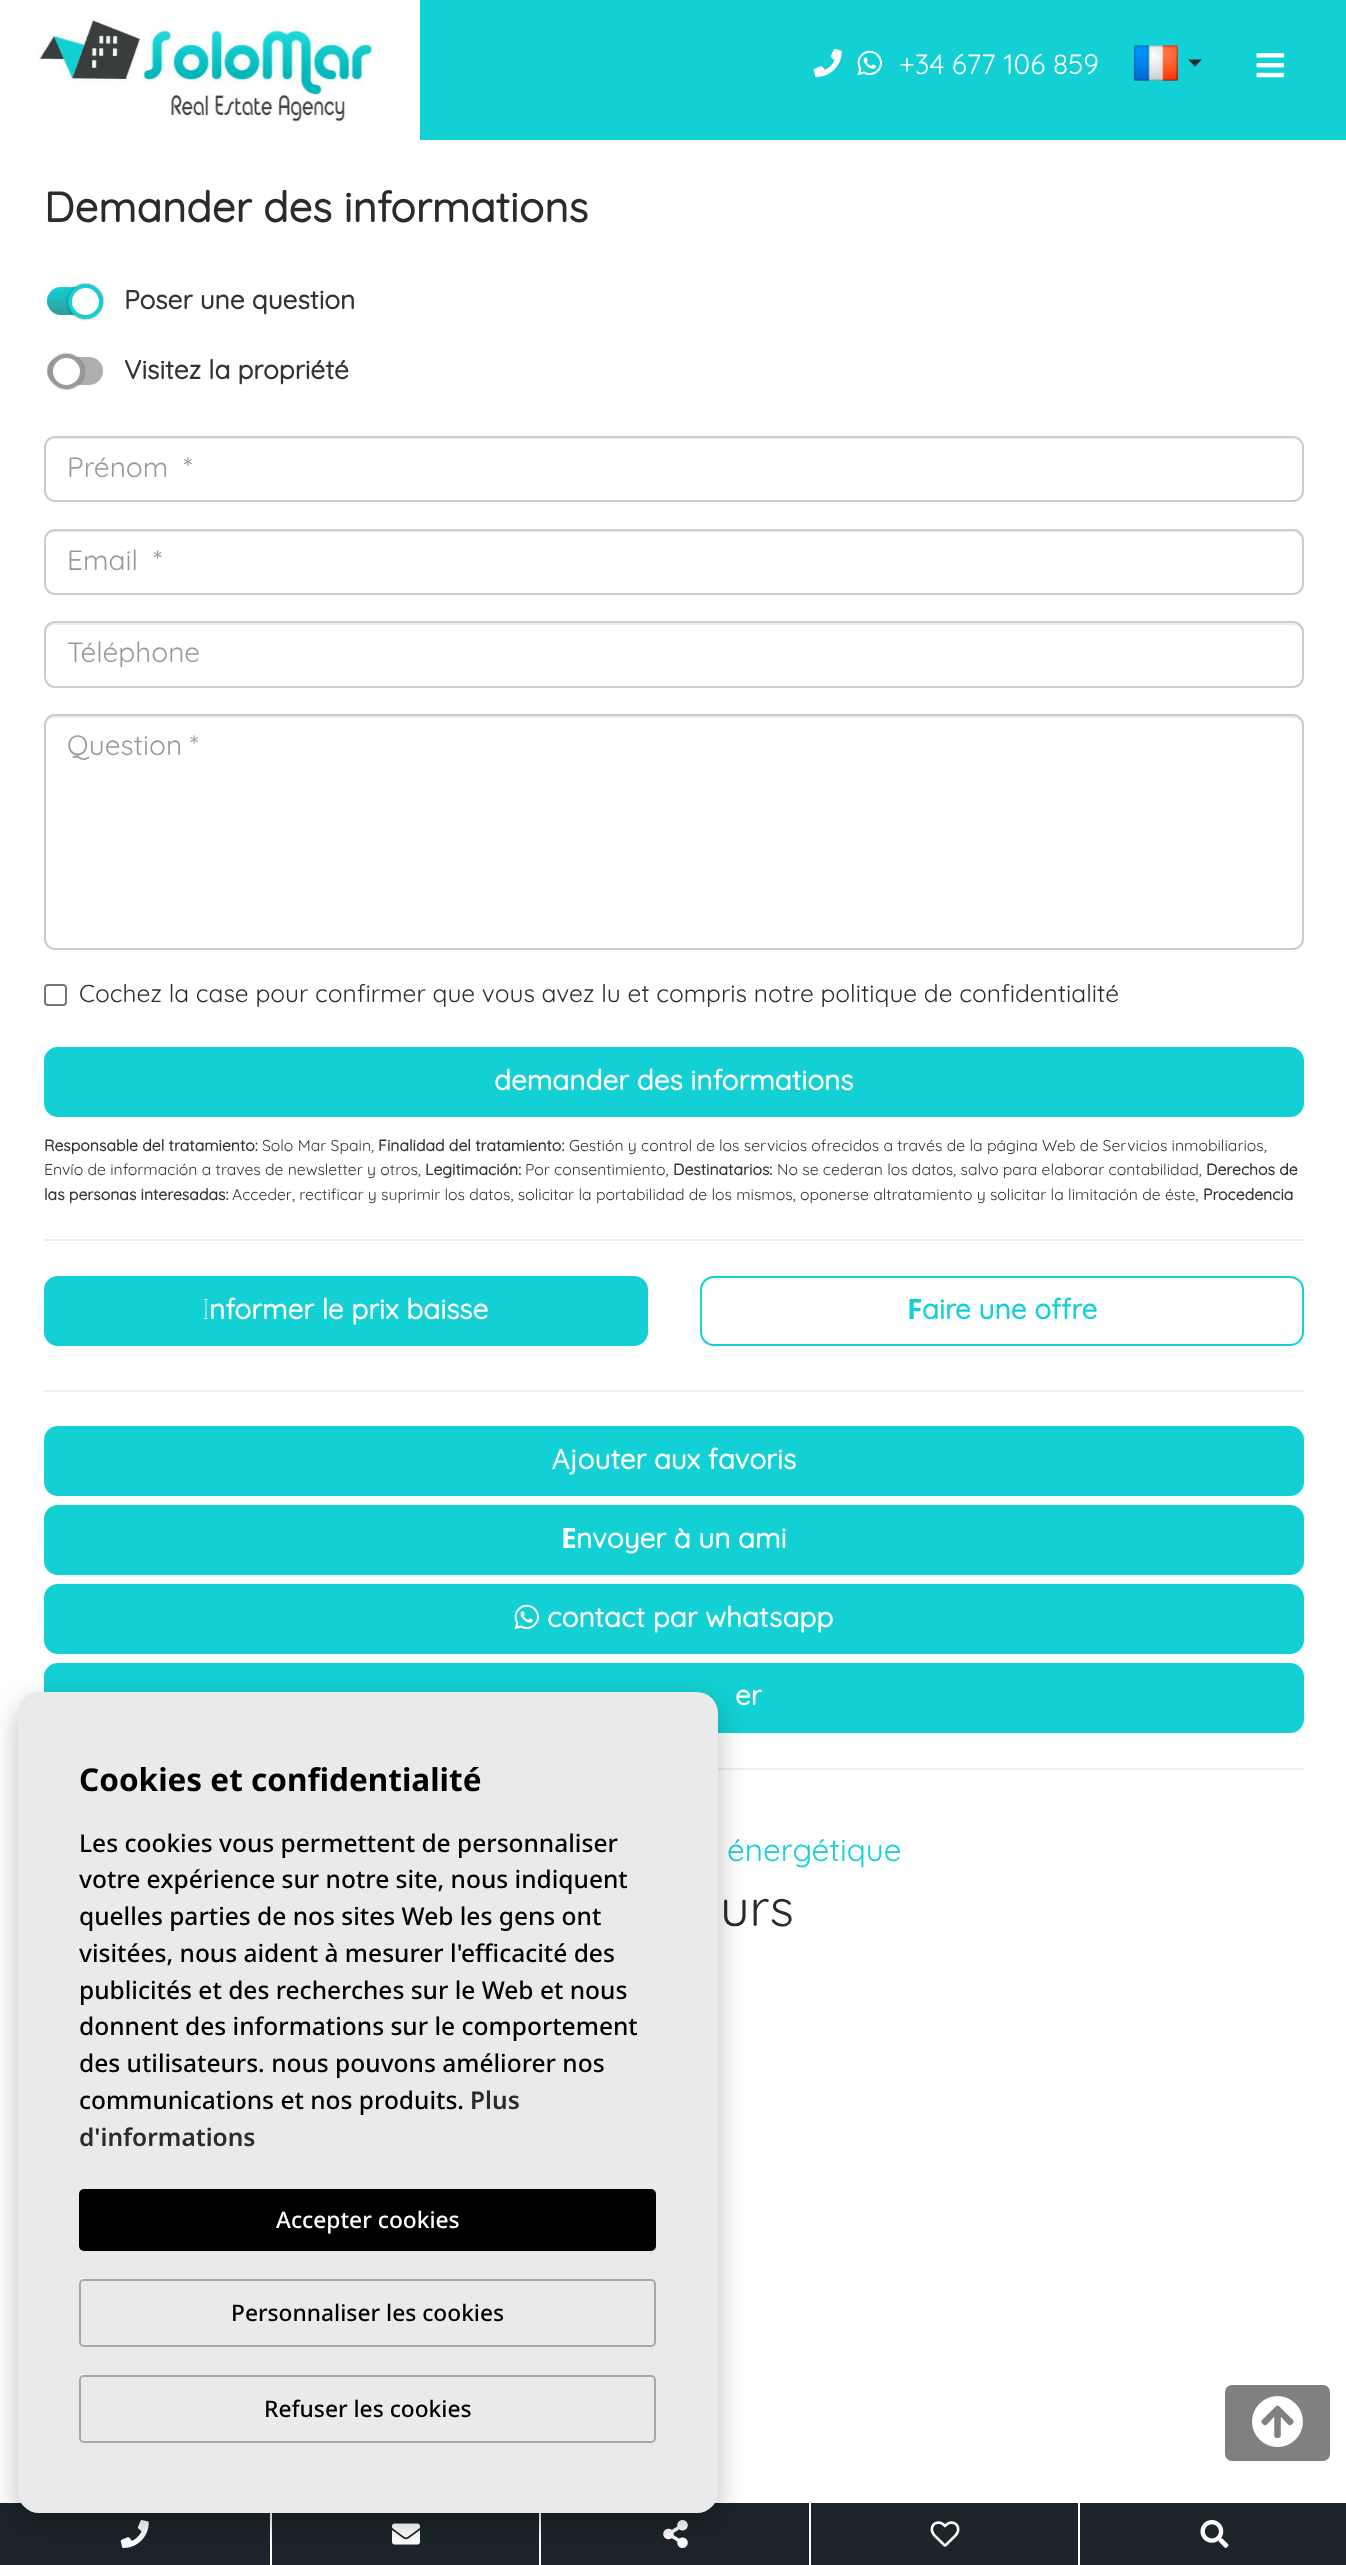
<svg xmlns="http://www.w3.org/2000/svg" width="1346" height="2565" viewBox="0 0 1346 2565">
  <style>
    .t1 { font: 300 28px Quicksand; fill: #fff; }
    .t2 { font: bold 42px Quicksand; fill: #292b2c; }
    .t3 { font: bold 26.25px Quicksand; fill: #333; }
    .t4 { font: 300 28px Quicksand; fill: #999; }
    .t5 { font: 300 24.5px Quicksand; fill: #292b2c; }
    .t6 { font: bold 28px Quicksand; fill: #fff; }
    .t7 { font: bold 15.75px Quicksand; fill: #333; }
    .t8 { font: 300 15.75px Quicksand; fill: #333; }
    .t9 { font: 100 28px Noto Sans; fill: #fff; }
    .t10 { font: bold 28px Noto Sans; fill: #12d0d4; }
    .t11 { font: bold 28px Quicksand; fill: #12d0d4; }
    .t12 { font: 28px Noto Sans; fill: #fff; }
    .t13 { font: bold 28px Noto Sans; fill: #fff; }
    .t14 { font: 300 31.5px Quicksand; fill: #12d0d4; }
    .t15 { font: 300 52px Quicksand; fill: #292b2c; }
    .t16 { font: bold 31.5px Noto Sans; fill: #000; }
    .t17 { font: 500 24.5px Noto Sans; fill: #000; }
    .t18 { font: 600 24.5px Noto Sans; fill: #292b2c; }
    .t19 { font: 500 22.75px Noto Sans; fill: #fff; }
    .t20 { font: 500 22.75px Noto Sans; fill: #000; }
  </style>
  <defs>
    <linearGradient id="g1" gradientUnits="userSpaceOnUse" x1="75" y1="287" x2="75" y2="326"><stop offset="0" stop-color="#12d0d4"/><stop offset="1" stop-color="#3d8783"/></linearGradient>
  </defs>
  <rect width="100%" height="100%" fill="#fff"/>
  <rect x="420" y="0" width="926" height="140" fill="#12d0d4"/>
  <image x="38" y="18" width="336" height="105" href="images/1.png"/>
  <image x="813" y="49" width="29" height="28" href="images/2.png"/>
  <image x="857" y="50" width="25" height="26" href="images/3.png"/>
  <text x="899" y="74" class="t1">+34 677 106 859</text>
  <image x="1133" y="45" width="45" height="36" href="images/4.png"/>
  <path d="M1188 59.5H1202L1195 66.5Z" fill="#292b2c"/>
  <image x="1256" y="53" width="29" height="25" href="images/5.png"/>
  <text x="44" y="222" class="t2">Demander des informations</text>
  <rect x="47" y="287" width="56" height="28" rx="14" fill="url(#g1)"/>
  <rect x="68" y="284" width="35" height="35" rx="17.5" fill="#00000080" filter="blur(1px)"/>
  <circle cx="85.5" cy="301.5" r="15.5" fill="#fff" stroke="#12d0d4" stroke-width="4"/>
  <text x="124" y="309" class="t3">Poser une question</text>
  <rect x="47" y="357" width="56" height="28" rx="14" fill="#aeaeae"/>
  <rect x="49" y="354" width="35" height="35" rx="17.5" fill="#00000080" filter="blur(1px)"/>
  <circle cx="66.5" cy="371.5" r="15.5" fill="#fff" stroke="#999" stroke-width="4"/>
  <text x="124" y="379" class="t3">Visitez la propriété</text>
  <path d="M54 439H1293C1298 439 1302 443 1302 448V447C1302 442 1298 438 1293 438H55C50 438 46 442 46 447V448C46 443 49 439 54 439Z" fill="#ececec"/>
  <rect x="45" y="437" width="1258" height="64" rx="10" fill="none" stroke="#ccc" stroke-width="2"/>
  <text x="67" y="477" class="t4" xml:space="preserve">Prénom  *</text>
  <path d="M54 532H1293C1298 532 1302 536 1302 541V539C1302 534 1298 530 1293 530H55C50 530 46 534 46 539V541C46 536 49 532 54 532Z" fill="#ececec"/>
  <rect x="45" y="530" width="1258" height="64" rx="10" fill="none" stroke="#ccc" stroke-width="2"/>
  <text x="67" y="570" class="t4" xml:space="preserve">Email  *</text>
  <path d="M54 625H1293C1298 625 1302 629 1302 634V632C1302 627 1298 623 1293 623H55C50 623 46 627 46 632V634C46 629 49 625 54 625Z" fill="#ececec"/>
  <rect x="45" y="622" width="1258" height="65" rx="10" fill="none" stroke="#ccc" stroke-width="2"/>
  <text x="67" y="662" class="t4">Téléphone</text>
  <path d="M54 718H1293C1298 718 1302 721 1302 726V725C1302 720 1298 716 1293 716H55C50 716 46 720 46 725V726C46 721 49 718 54 718Z" fill="#ececec"/>
  <rect x="45" y="715" width="1258" height="234" rx="10" fill="none" stroke="#ccc" stroke-width="2"/>
  <text x="67" y="755" class="t4">Question *</text>
  <rect x="45" y="985" width="21" height="20" rx="3" fill="none" stroke="#767676" stroke-width="2"/>
  <text x="79" y="1002" class="t5">Cochez la case pour confirmer que vous avez lu et compris notre politique de confidentialité</text>
  <rect x="45" y="1048" width="1258" height="68" rx="13" fill="#12d0d4" stroke="#12d0d4" stroke-width="2"/>
  <text x="494" y="1090" class="t6">demander des informations</text>
  <text x="44" y="1151" class="t7">Responsable del tratamiento:</text>
  <text x="262" y="1151" class="t8">Solo Mar Spain,</text>
  <text x="378" y="1151" class="t7">Finalidad del tratamiento:</text>
  <text x="569" y="1151" class="t8">Gestión y control de los servicios ofrecidos a través de la página Web de Servicios inmobiliarios,</text>
  <text x="44" y="1175" class="t8">Envío de información a traves de newsletter y otros,</text>
  <text x="425" y="1175" class="t7">Legitimación:</text>
  <text x="525" y="1175" class="t8">Por consentimiento,</text>
  <text x="673" y="1175" class="t7">Destinatarios:</text>
  <text x="777" y="1175" class="t8">No se cederan los datos, salvo para elaborar contabilidad,</text>
  <text x="1206" y="1175" class="t7">Derechos de</text>
  <text x="44" y="1200" class="t7">las personas interesadas:</text>
  <text x="232" y="1200" class="t8">Acceder, rectificar y suprimir los datos, solicitar la portabilidad de los mismos, oponerse altratamiento y solicitar la limitación de éste,</text>
  <text x="1203" y="1200" class="t7">Procedencia</text>
  <rect x="44" y="1239" width="1260" height="2" fill="#eee"/>
  <rect x="45" y="1277" width="602" height="68" rx="13" fill="#12d0d4" stroke="#12d0d4" stroke-width="2"/>
  <text x="202" y="1319" class="t9">I</text>
  <text x="209" y="1319" class="t6">nformer le prix baisse</text>
  <rect x="701" y="1277" width="602" height="68" rx="13" fill="none" stroke="#12d0d4" stroke-width="2"/>
  <text x="907" y="1319" class="t10">F</text>
  <text x="922" y="1319" class="t11">aire une offre</text>
  <rect x="44" y="1390" width="1260" height="2" fill="#eee"/>
  <rect x="45" y="1427" width="1258" height="68" rx="13" fill="#12d0d4" stroke="#12d0d4" stroke-width="2"/>
  <text x="552" y="1469" class="t12">A</text>
  <text x="570" y="1469" class="t6">jouter aux favoris</text>
  <rect x="45" y="1506" width="1258" height="68" rx="13" fill="#12d0d4" stroke="#12d0d4" stroke-width="2"/>
  <text x="561" y="1548" class="t13">E</text>
  <text x="576" y="1548" class="t6">nvoyer à un ami</text>
  <rect x="45" y="1585" width="1258" height="68" rx="13" fill="#12d0d4" stroke="#12d0d4" stroke-width="2"/>
  <image x="514" y="1604" width="25" height="26" href="images/3.png"/>
  <text x="547" y="1627" class="t6">contact par whatsapp</text>
  <rect x="45" y="1664" width="1258" height="68" rx="13" fill="#12d0d4" stroke="#12d0d4" stroke-width="2"/>
  <text x="735" y="1705" class="t6">er</text>
  <rect x="718" y="1768" width="586" height="2" fill="#eee"/>
  <text x="727" y="1861" class="t14">énergétique</text>
  <text x="720" y="1926" class="t15">urs</text>
  <rect x="0" y="2503" width="1346" height="62" fill="#1c252a"/>
  <image x="120" y="2520" width="29" height="28" href="images/7.png"/>
  <rect x="270" y="2513" width="2" height="52" fill="#fff"/>
  <image x="392" y="2523" width="28" height="22" href="images/8.png"/>
  <rect x="539" y="2513" width="2" height="52" fill="#fff"/>
  <image x="663" y="2520" width="25" height="28" href="images/9.png"/>
  <rect x="18" y="1703" width="700" height="821" rx="21" fill="#00000040" filter="blur(14px)"/>
  <rect x="18" y="1692" width="700" height="821" rx="21" fill="#eaeaea"/>
  <text x="79" y="1791" class="t16">Cookies et confidentialité</text>
  <text x="79" y="1852" class="t17">Les cookies vous permettent de personnaliser</text>
  <text x="79" y="1888" class="t17">votre expérience sur notre site, nous indiquent</text>
  <text x="79" y="1925" class="t17">quelles parties de nos sites Web les gens ont</text>
  <text x="79" y="1962" class="t17">visitées, nous aident à mesurer l'efficacité des</text>
  <text x="79" y="1999" class="t17">publicités et des recherches sur le Web et nous</text>
  <text x="79" y="2035" class="t17">donnent des informations sur le comportement</text>
  <text x="79" y="2072" class="t17">des utilisateurs. nous pouvons améliorer nos</text>
  <text x="79" y="2109" class="t17">communications et nos produits.</text>
  <text x="470" y="2109" class="t18">Plus</text>
  <text x="79" y="2146" class="t18">d'informations</text>
  <rect x="79" y="2189" width="577" height="62" rx="5" fill="#000"/>
  <text x="276" y="2228" class="t19">Accepter cookies</text>
  <rect x="80" y="2280" width="575" height="66" rx="4" fill="none" stroke="#a8a8a8" stroke-width="2"/>
  <text x="231" y="2321" class="t20">Personnaliser les cookies</text>
  <rect x="80" y="2376" width="575" height="66" rx="4" fill="none" stroke="#a8a8a8" stroke-width="2"/>
  <text x="264" y="2417" class="t20">Refuser les cookies</text>
  <rect x="1225" y="2385" width="105" height="76" rx="7" fill="#808080"/>
  <image x="1252" y="2396" width="51" height="51" href="images/6.png"/>
  <rect x="809" y="2503" width="2" height="62" fill="#fff"/>
  <image x="930" y="2521" width="30" height="26" href="images/10.png"/>
  <rect x="1078" y="2503" width="2" height="62" fill="#fff"/>
  <image x="1200" y="2520" width="29" height="28" href="images/11.png"/>
</svg>
